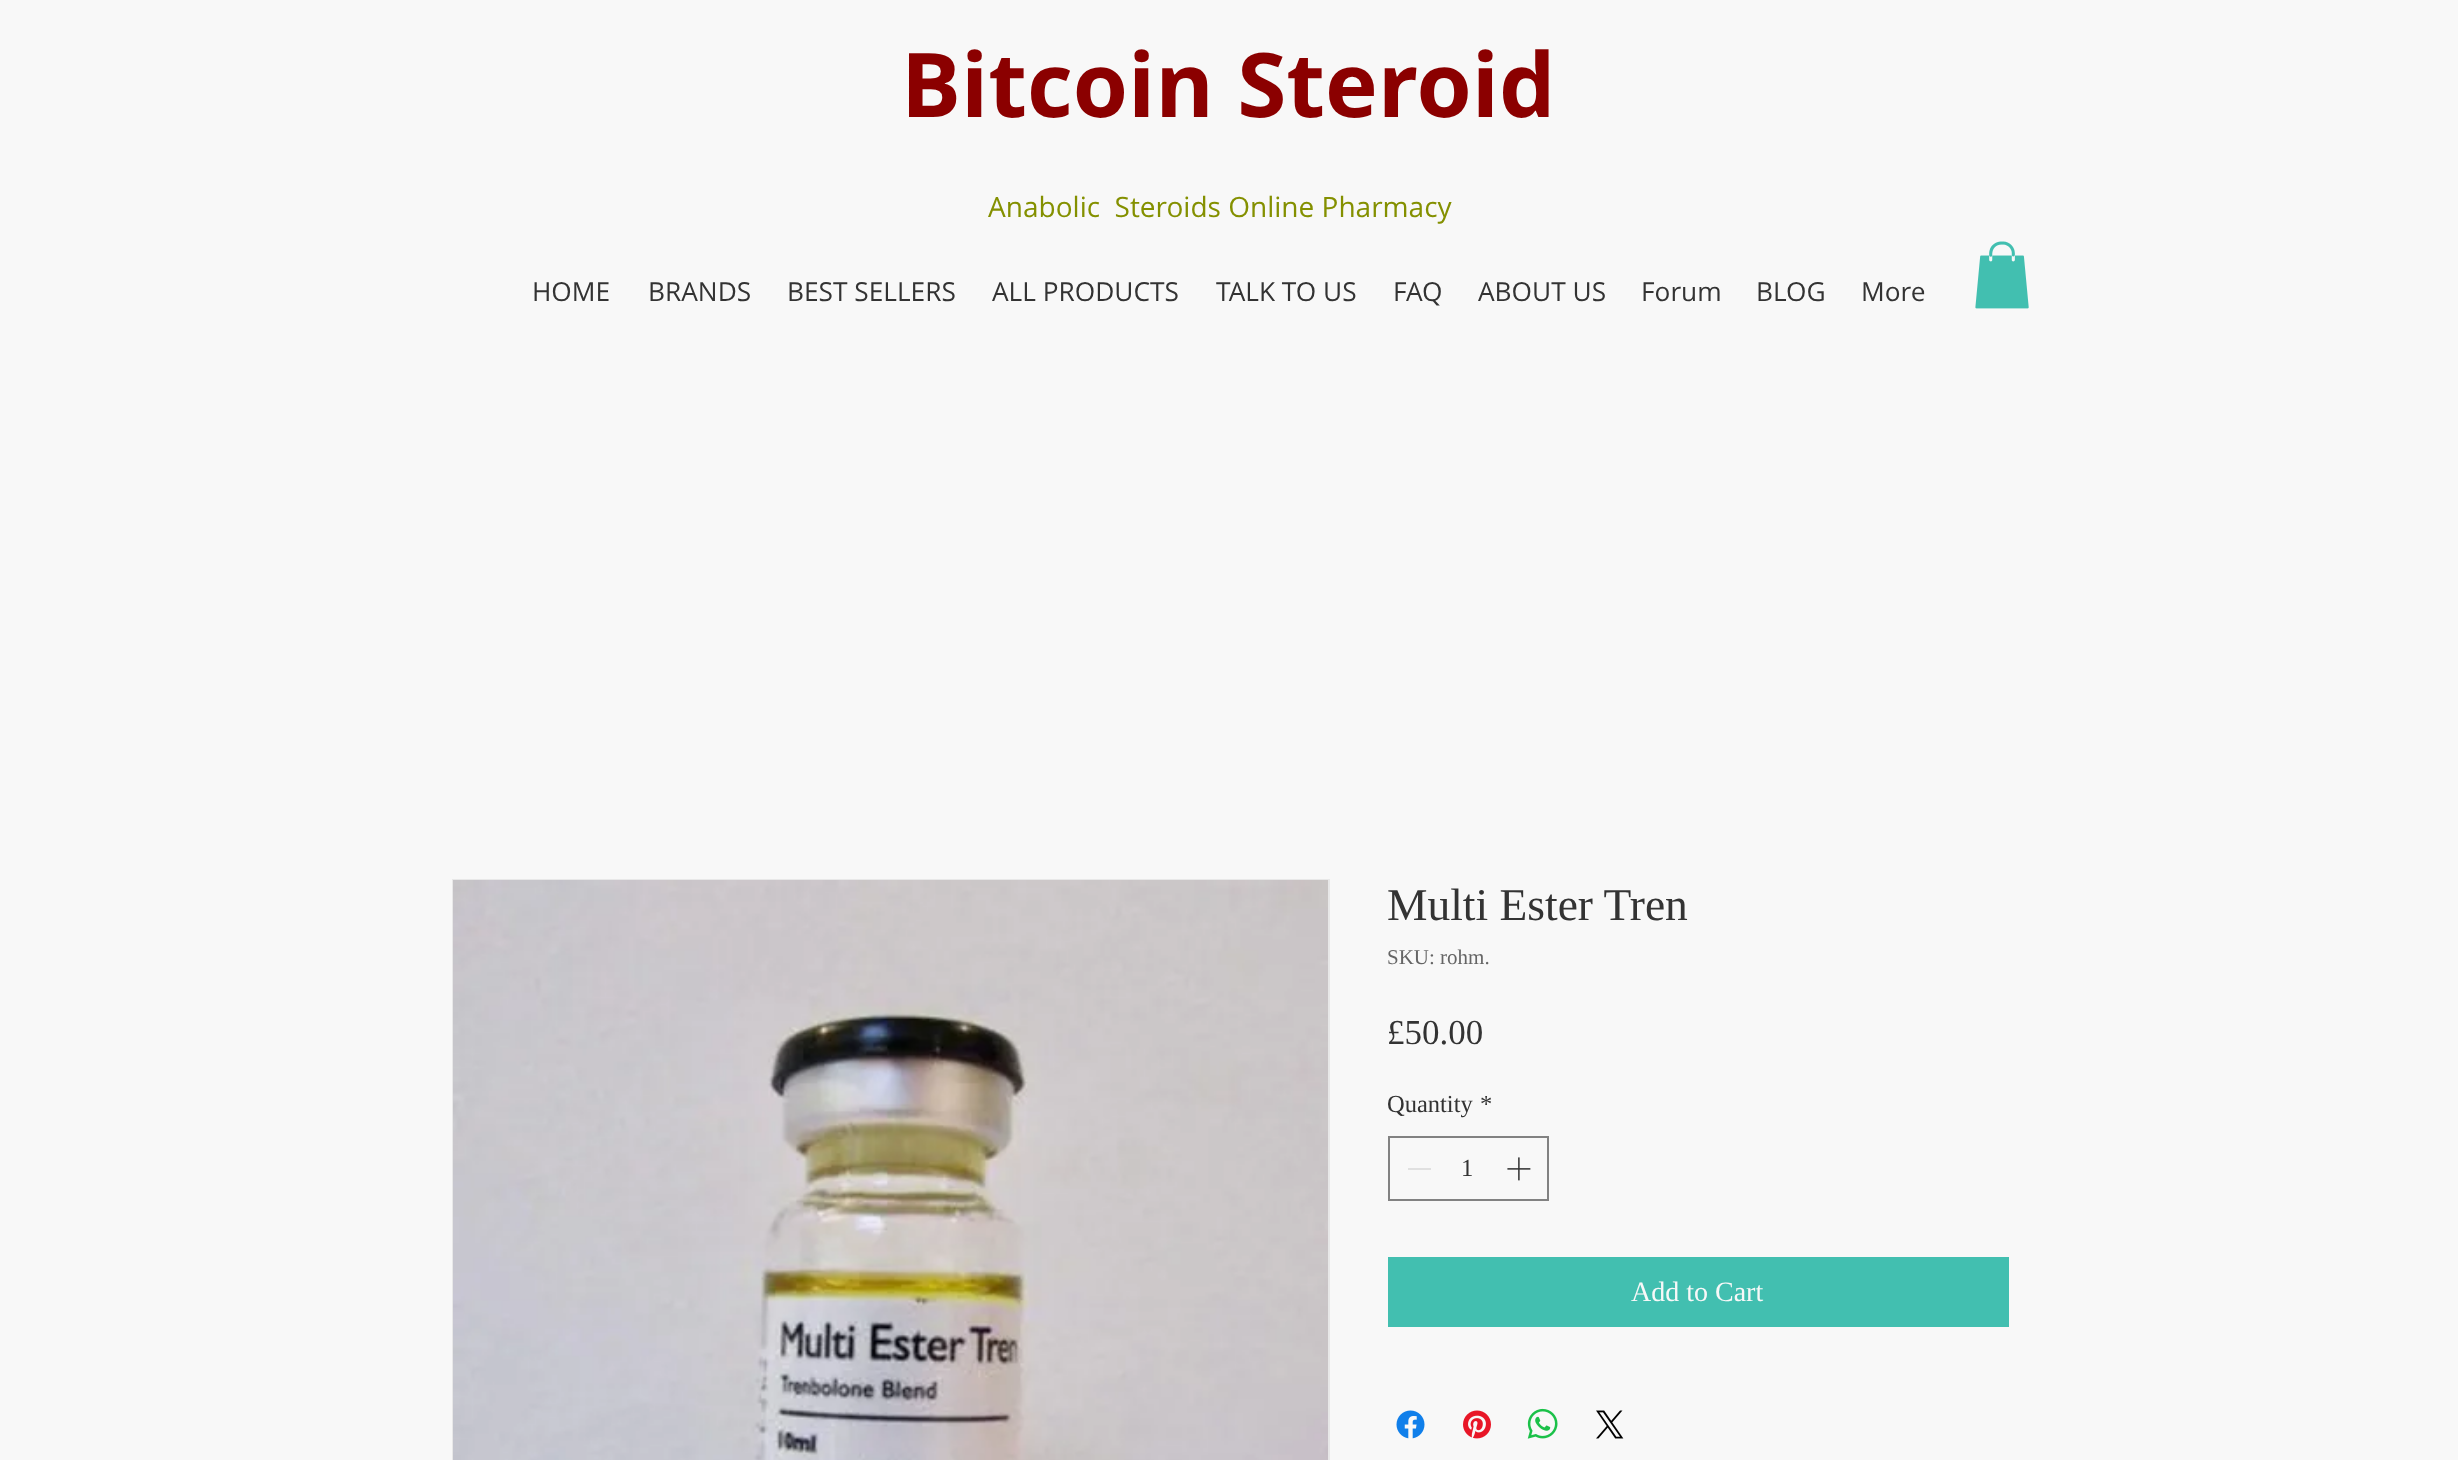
<svg xmlns="http://www.w3.org/2000/svg" width="2458" height="1460" viewBox="0 0 2458 1460">
  <style>
    .t1 { font: bold 89.25px Open Sans; fill: #8b0000; }
    .t2 { font: 28px Open Sans; fill: #849000; }
    .t3 { font: 26.25px Open Sans; fill: #333; }
    .t4 { font: 45.5px Liberation Serif; fill: #333; }
    .t5 { font: 21px Liberation Serif; fill: #656565; }
    .t6 { font: 35px Liberation Serif; fill: #333; }
    .t7 { font: 24.5px Liberation Serif; fill: #333; }
    .t8 { font: 28px Liberation Serif; fill: #f8f8f8; }
  </style>
  <rect width="100%" height="100%" fill="#f8f8f8"/>
  <text x="901" y="117" class="t1">Bitcoin Steroid</text>
  <text x="988" y="217" class="t2" xml:space="preserve">Anabolic  Steroids Online Pharmacy</text>
  <text x="532" y="301" class="t3">HOME</text>
  <text x="648" y="301" class="t3">BRANDS</text>
  <text x="787" y="301" class="t3">BEST SELLERS</text>
  <text x="992" y="301" class="t3">ALL PRODUCTS</text>
  <text x="1216" y="301" class="t3">TALK TO US</text>
  <text x="1393" y="301" class="t3">FAQ</text>
  <text x="1478" y="301" class="t3">ABOUT US</text>
  <text x="1641" y="301" class="t3">Forum</text>
  <text x="1756" y="301" class="t3">BLOG</text>
  <text x="1861" y="301" class="t3">More</text>
  <image x="1975" y="241" width="54" height="68" href="images/1.png"/>
  <rect x="453" y="880" width="876" height="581" fill="none" stroke="#e8e8e8" stroke-width="2"/>
  <image x="453" y="880" width="875" height="580" href="images/2.png"/>
  <text x="1387" y="920" class="t4">Multi Ester Tren</text>
  <text x="1387" y="964" class="t5">SKU: rohm.</text>
  <text x="1387" y="1044" class="t6">£50.00</text>
  <text x="1387" y="1112" class="t7">Quantity</text>
  <text x="1480" y="1112" class="t7">*</text>
  <rect x="1389" y="1137" width="159" height="63" fill="none" stroke="#828282" stroke-width="2"/>
  <rect x="1408" y="1168" width="23" height="2" fill="#e0e0e0"/>
  <text x="1461" y="1176" class="t7">1</text>
  <image x="1507" y="1157" width="24" height="24" href="images/3.png"/>
  <rect x="1388" y="1257" width="621" height="70" fill="#42bfb0"/>
  <text x="1631" y="1301" class="t8">Add to Cart</text>
  <image x="1396" y="1410" width="29" height="29" href="images/4.png"/>
  <image x="1463" y="1410" width="28" height="29" href="images/5.png"/>
  <image x="1527" y="1408" width="31" height="31" href="images/6.png"/>
  <image x="1596" y="1410" width="28" height="29" href="images/7.png"/>
</svg>
